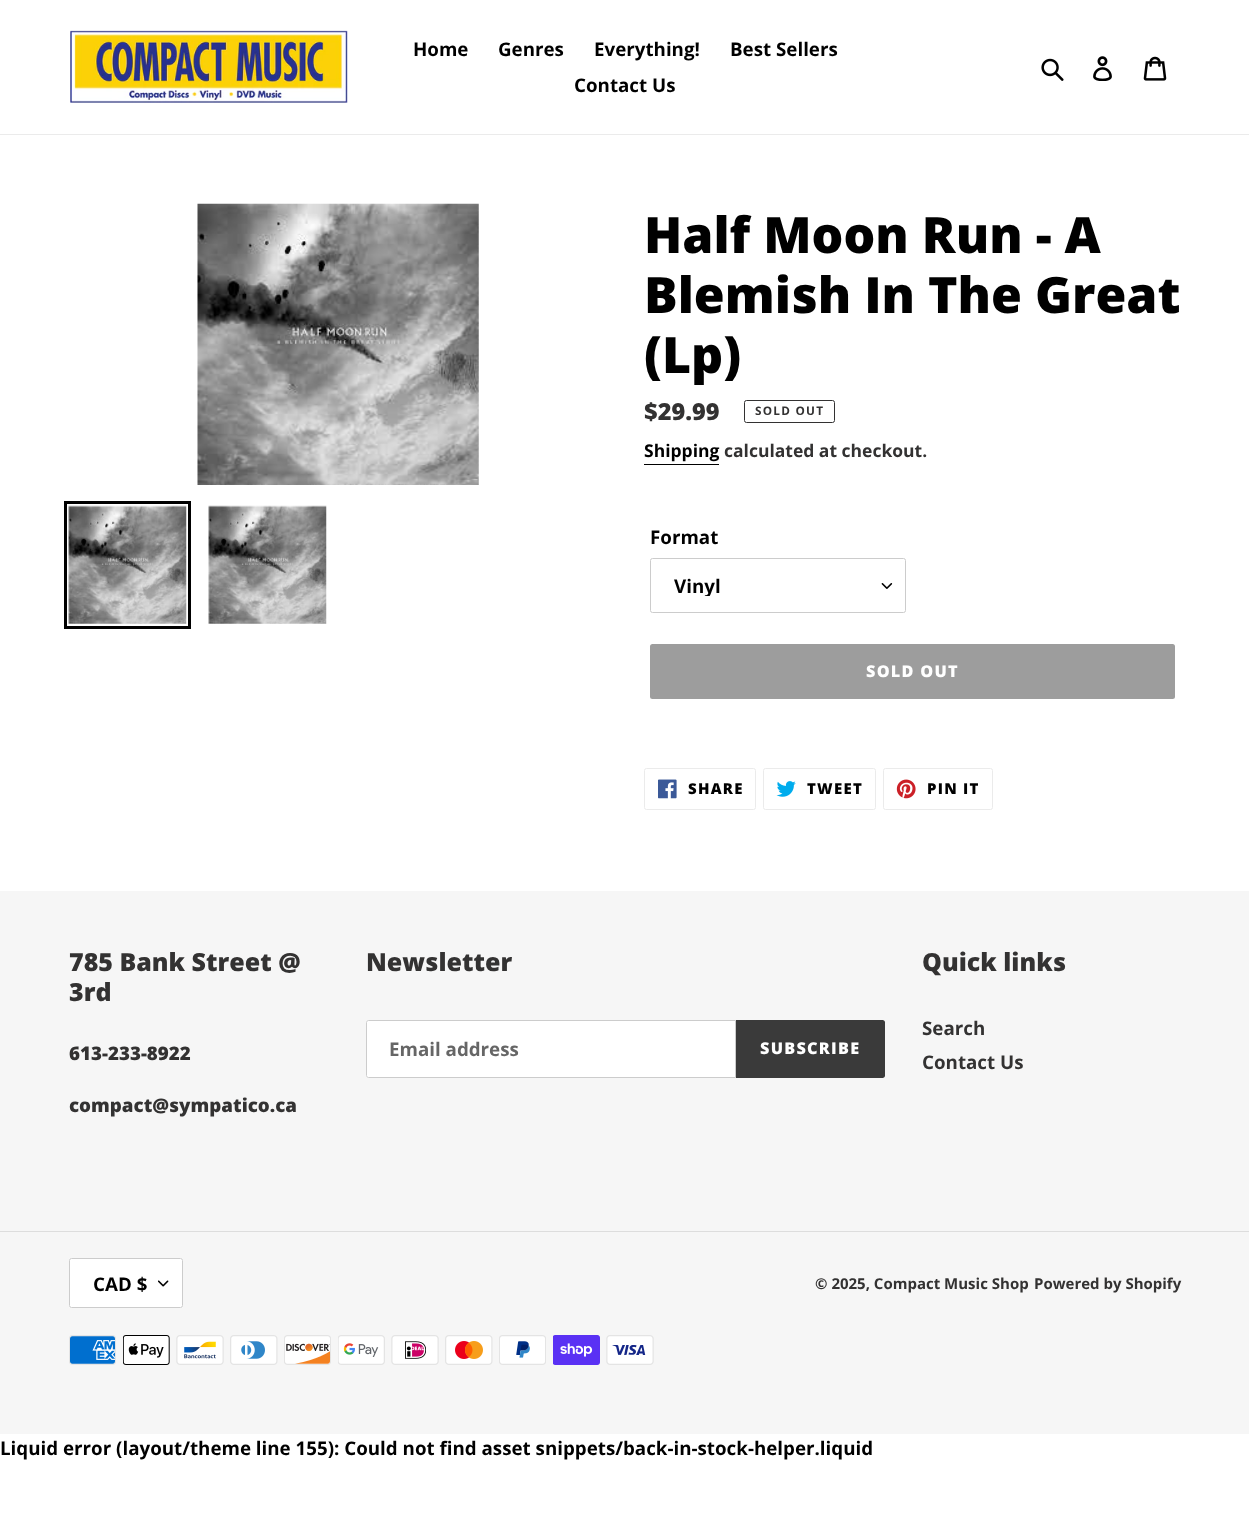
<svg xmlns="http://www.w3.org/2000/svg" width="1249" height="1516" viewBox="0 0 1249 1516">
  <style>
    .t1 { font: bold 18.75px Open Sans; fill: #000; }
    .t2 { font: 800 50px Open Sans; fill: #000; }
    .t3 { font: 800 23.5px Open Sans; fill: #333232; }
    .t4 { font: bold 11.75px Open Sans; letter-spacing: 1.25px; fill: #333232; }
    .t5 { font: bold 17.5px Open Sans; fill: #000; }
    .t6 { font: bold 17.5px Open Sans; fill: #333232; }
    .t7 { font: 800 16.25px Open Sans; letter-spacing: 1.25px; fill: #fff; }
    .t8 { font: 800 15px Open Sans; letter-spacing: 1.25px; fill: #000; }
    .t9 { font: 800 25px Open Sans; fill: #333232; }
    .t10 { font: 800 18.75px Open Sans; fill: #333232; }
    .t11 { font: bold 18.75px Open Sans; fill: #666; }
    .t12 { font: bold 18.75px Open Sans; fill: #333232; }
    .t13 { font: bold 15px Open Sans; fill: #333232; }
  </style>
  <defs>
    <clipPath id="clip1"><rect x="674" y="574" width="196" height="22"/></clipPath>
  </defs>
  <rect width="100%" height="100%" fill="#fff"/>
  <rect x="0" y="134" width="1249" height="1" fill="#ebebeb"/>
  <image x="70" y="30" width="278" height="73" href="images/1.png"/>
  <text x="413" y="56" class="t1">Home</text>
  <text x="498" y="56" class="t1">Genres</text>
  <text x="594" y="56" class="t1">Everything!</text>
  <text x="730" y="56" class="t1">Best Sellers</text>
  <text x="574" y="92" class="t1">Contact Us</text>
  <image x="1041" y="58" width="23" height="23" href="images/2.png"/>
  <image x="1093" y="56" width="19" height="25" href="images/3.png"/>
  <image x="1143" y="56" width="24" height="25" href="images/4.png"/>
  <image x="197" y="203" width="282" height="282" href="images/5.png"/>
  <rect x="65.5" y="502.5" width="124" height="125" fill="none" stroke="#000" stroke-width="3"/>
  <image x="68" y="505" width="119" height="119" href="images/6.png"/>
  <image x="208" y="505" width="119" height="119" href="images/6.png"/>
  <text x="644" y="253" class="t2">Half Moon Run - A</text>
  <text x="644" y="313" class="t2">Blemish In The Great</text>
  <text x="644" y="373" class="t2">(Lp)</text>
  <text x="644" y="420" class="t3">$29.99</text>
  <rect x="744.5" y="400.5" width="90" height="22" rx="2" fill="none" stroke="#333232"/>
  <text x="755" y="415" class="t4">SOLD OUT</text>
  <text x="644" y="457" class="t5">Shipping</text>
  <rect x="644" y="464" width="75" height="1" fill="#000"/>
  <text x="724" y="457" class="t6">calculated at checkout.</text>
  <text x="650" y="544" class="t1">Format</text>
  <image x="881" y="583" width="12" height="6" href="images/7.png"/>
  <rect x="650.5" y="558.5" width="255" height="54" rx="2" fill="none" stroke="#ccc"/>
  <g clip-path="url(#clip1)">
    <text x="674" y="593" class="t1">Vinyl</text>
  </g>
  <rect x="650" y="644" width="525" height="55" rx="2.5" fill="#9d9d9d"/>
  <text x="866" y="677" class="t7">SOLD OUT</text>
  <rect x="644.5" y="768.5" width="111" height="41" rx="2" fill="none" stroke="#ebebeb"/>
  <image x="658" y="779" width="19" height="20" href="images/8.png"/>
  <text x="688" y="794" class="t8">SHARE</text>
  <rect x="763.5" y="768.5" width="112" height="41" rx="2" fill="none" stroke="#ebebeb"/>
  <image x="776" y="781" width="20" height="16" href="images/9.png"/>
  <text x="807" y="794" class="t8">TWEET</text>
  <rect x="883.5" y="768.5" width="109" height="41" rx="2" fill="none" stroke="#ebebeb"/>
  <image x="896" y="779" width="20" height="20" href="images/10.png"/>
  <text x="927" y="794" class="t8">PIN IT</text>
  <rect x="0" y="891" width="1249" height="543" fill="#f6f6f6"/>
  <text x="69" y="971" class="t9">785 Bank Street @</text>
  <text x="69" y="1001" class="t9">3rd</text>
  <text x="69" y="1060" class="t10">613-233-8922</text>
  <text x="69" y="1112" class="t10">compact@sympatico.ca</text>
  <text x="366" y="971" class="t9">Newsletter</text>
  <path d="M368.5 1020.5H735.5V1077.5H368.5C367.5 1077.5 366.5 1076.5 366.5 1075.5V1022.5C366.5 1021.5 367.5 1020.5 368.5 1020.5Z" fill="#fff" stroke="#ccc"/>
  <text x="389" y="1056" class="t11">Email address</text>
  <path d="M736 1020H882.5C884 1020 885 1021 885 1022.5V1075.5C885 1077 884 1078 882.5 1078H736Z" fill="#3a3a3a"/>
  <text x="760" y="1054" class="t7">SUBSCRIBE</text>
  <text x="922" y="971" class="t9">Quick links</text>
  <text x="922" y="1035" class="t12">Search</text>
  <text x="922" y="1069" class="t12">Contact Us</text>
  <rect x="0" y="1231" width="1249" height="1" fill="#ddd"/>
  <rect x="69" y="1258" width="114" height="50" rx="2.5" fill="#fff"/>
  <image x="158" y="1280" width="11" height="7" href="images/11.png"/>
  <rect x="69.5" y="1258.5" width="113" height="49" rx="2" fill="none" stroke="#ccc"/>
  <text x="93" y="1291" class="t1">CAD $</text>
  <text x="815" y="1289" class="t13">© 2025, Compact Music Shop</text>
  <text x="1034" y="1289" class="t13">Powered by Shopify</text>
  <image x="69" y="1335" width="47" height="30" href="images/12.png"/>
  <image x="123" y="1335" width="47" height="30" href="images/13.png"/>
  <image x="176" y="1335" width="48" height="30" href="images/14.png"/>
  <image x="230" y="1335" width="48" height="30" href="images/15.png"/>
  <image x="284" y="1335" width="47" height="30" href="images/16.png"/>
  <image x="338" y="1335" width="47" height="30" href="images/17.png"/>
  <image x="391" y="1335" width="48" height="30" href="images/18.png"/>
  <image x="445" y="1335" width="48" height="30" href="images/19.png"/>
  <image x="499" y="1335" width="47" height="30" href="images/20.png"/>
  <image x="553" y="1335" width="47" height="30" href="images/21.png"/>
  <image x="606" y="1335" width="48" height="30" href="images/22.png"/>
  <text x="0" y="1455" class="t1">Liquid error (layout/theme line 155): Could not find asset snippets/back-in-stock-helper.liquid</text>
</svg>
